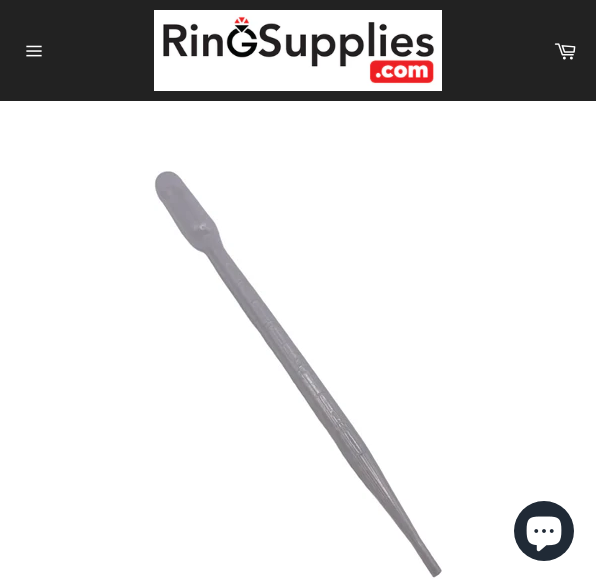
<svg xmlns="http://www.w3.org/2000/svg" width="596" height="582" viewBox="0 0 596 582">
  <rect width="100%" height="100%" fill="#222"/>
  <image x="26" y="45" width="16" height="12" href="images/1.png"/>
  <image x="154" y="10" width="288" height="81" href="images/2.png"/>
  <image x="554" y="43" width="22" height="17" href="images/3.png"/>
  <rect x="0" y="101" width="596" height="481" fill="#fff"/>
  <image x="154" y="171" width="288" height="408" href="images/4.png"/>
  <circle cx="544" cy="531" r="30" fill="#202a36"/>
  <image x="526" y="516" width="36" height="36" href="images/5.png"/>
</svg>
